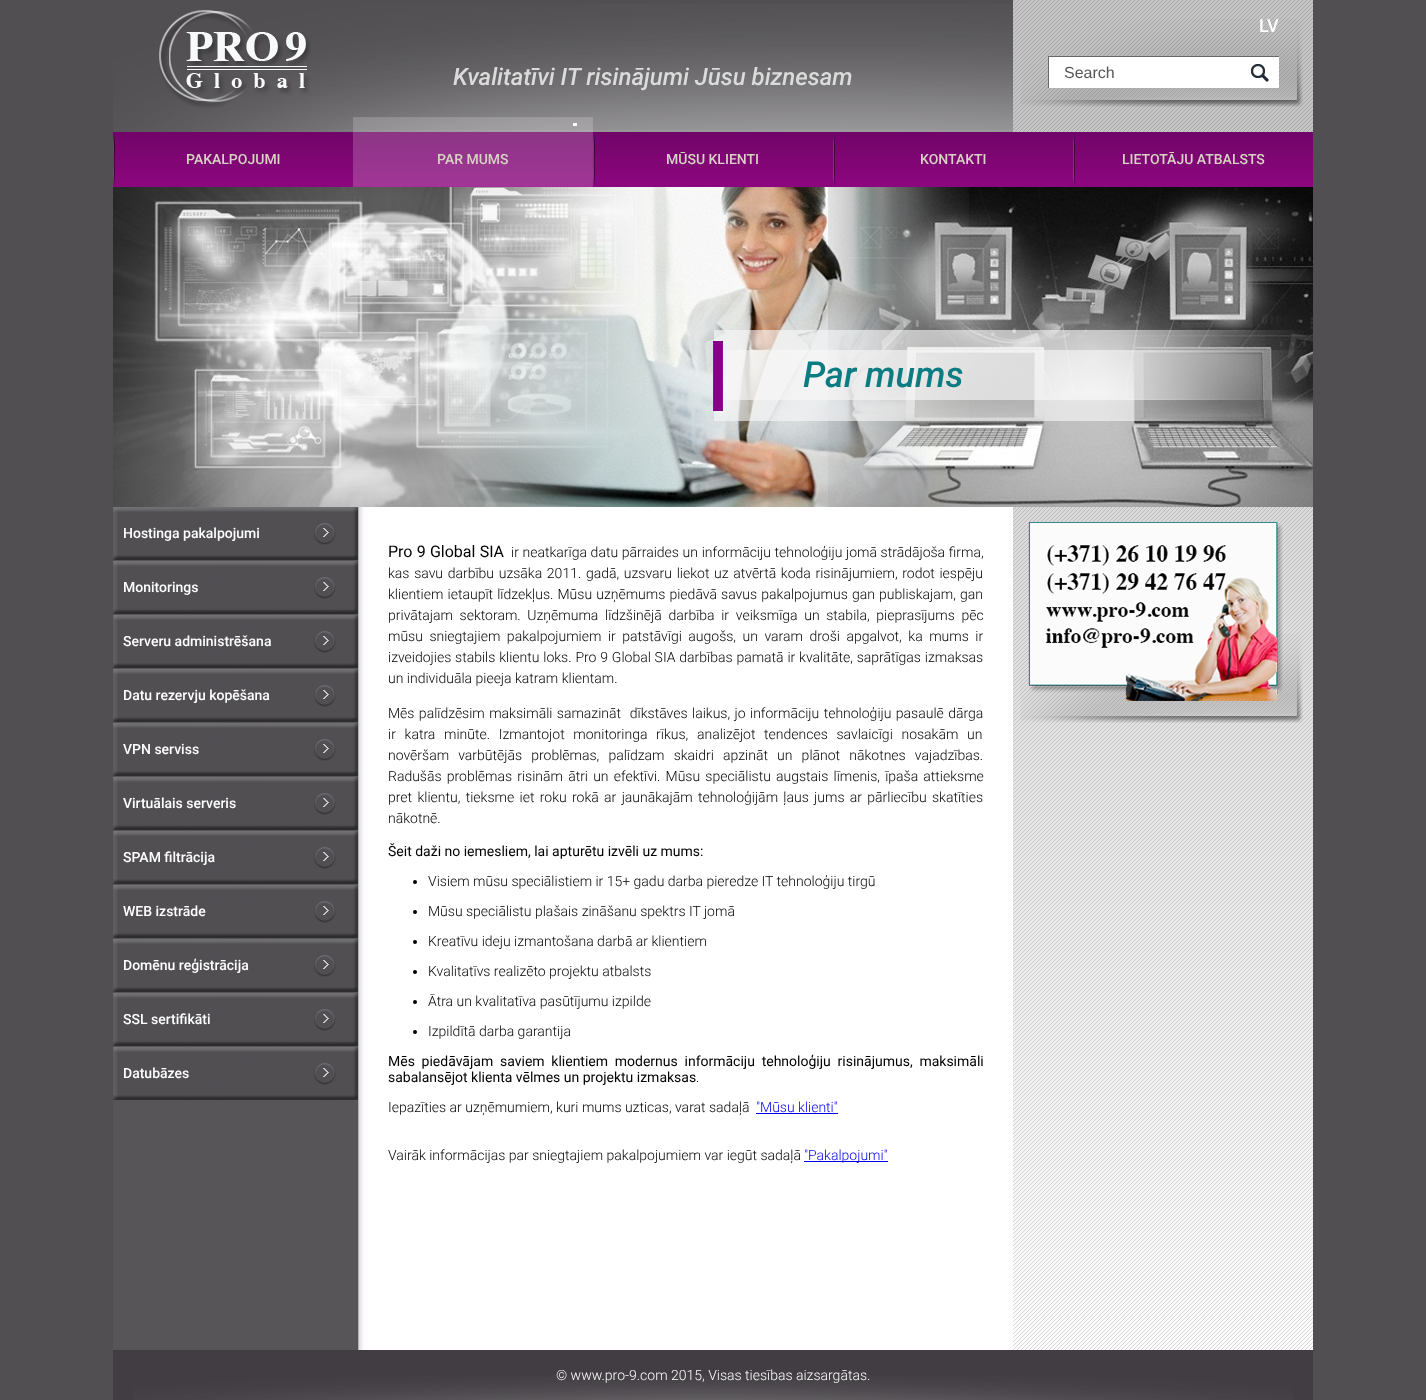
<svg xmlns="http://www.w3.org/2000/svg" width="1426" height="1400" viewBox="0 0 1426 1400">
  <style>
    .t1 { font: italic 500 24px Roboto; fill: #dbdbdb; }
    .t2 { font: 500 18px Roboto; fill: #fff; }
    .t3 { font: 16px Liberation Sans; fill: #575558; }
    .t4 { font: 500 14px Roboto; fill: #d6d4c1; }
    .t5 { font: 500 14px Roboto; fill: #fff; }
    .t6 { font: italic 500 36px Roboto; fill: #0b7c82; }
    .t7 { font: 16px Roboto; fill: #000; }
    .t8 { font: 300 14px Roboto; fill: #000; }
    .t9 { font: 14px Roboto; fill: #000; }
    .t10 { font: 300 14px Roboto; fill: #00e; }
    .t11 { font: 300 14px Roboto; fill: #fff; }
  </style>
  <defs>
    <linearGradient id="g1" gradientUnits="userSpaceOnUse" x1="713" y1="132" x2="713" y2="187"><stop offset="0" stop-color="#710569"/><stop offset="1" stop-color="#8d067f"/></linearGradient>
    <linearGradient id="g2" gradientUnits="userSpaceOnUse" x1="1163" y1="0" x2="1163" y2="1400"><stop offset="0" stop-color="#c5c5c5"/><stop offset="1" stop-color="#fff"/></linearGradient>
  </defs>
  <rect width="100%" height="100%" fill="#514f52"/>
  <image x="113" y="507" width="900" height="843" href="images/1.png"/>
  <image x="113" y="4" width="900" height="128" href="images/2.png"/>
  <image x="159" y="10" width="152" height="98" href="images/3.png"/>
  <text x="453" y="85" class="t1">Kvalitatīvi IT risinājumi Jūsu biznesam</text>
  <rect x="1013" y="0" width="300" height="132" fill="#c5c5c5"/>
  <image x="1013" y="0" width="300" height="132" href="images/4.png"/>
  <image x="1020" y="19" width="283" height="88" href="images/5.png"/>
  <text x="1259" y="32" class="t2">LV</text>
  <rect x="1049" y="57" width="230" height="31" fill="#fff"/>
  <image x="1251" y="64" width="18" height="18" href="images/6.png"/>
  <rect x="1048" y="56" width="231" height="1" fill="#696969"/>
  <rect x="1048" y="56" width="1" height="32" fill="#696969"/>
  <text x="1064" y="78" class="t3">Search</text>
  <rect x="113" y="132" width="1200" height="55" fill="url(#g1)"/>
  <image x="113" y="133" width="2" height="53" href="images/7.png"/>
  <text x="186" y="164" class="t4">PAKALPOJUMI</text>
  <image x="353" y="117" width="240" height="70" href="images/8.png"/>
  <text x="437" y="164" class="t4">PAR MUMS</text>
  <image x="593" y="133" width="2" height="53" href="images/7.png"/>
  <text x="666" y="164" class="t4">MŪSU KLIENTI</text>
  <image x="833" y="133" width="2" height="53" href="images/7.png"/>
  <text x="920" y="164" class="t4">KONTAKTI</text>
  <image x="1073" y="133" width="2" height="53" href="images/7.png"/>
  <text x="1122" y="164" class="t4">LIETOTĀJU ATBALSTS</text>
  <image x="113" y="187" width="1200" height="320" href="images/9.png"/>
  <image x="113" y="507" width="245" height="53" href="images/10.png"/>
  <image x="314" y="523" width="22" height="22" href="images/11.png"/>
  <text x="123" y="538" class="t5">Hostinga pakalpojumi</text>
  <image x="113" y="561" width="245" height="53" href="images/10.png"/>
  <image x="314" y="577" width="22" height="22" href="images/11.png"/>
  <text x="123" y="592" class="t5">Monitorings</text>
  <image x="113" y="615" width="245" height="53" href="images/10.png"/>
  <image x="314" y="631" width="22" height="22" href="images/11.png"/>
  <text x="123" y="646" class="t5">Serveru administrēšana</text>
  <image x="113" y="669" width="245" height="53" href="images/10.png"/>
  <image x="314" y="685" width="22" height="22" href="images/11.png"/>
  <text x="123" y="700" class="t5">Datu rezervju kopēšana</text>
  <image x="113" y="723" width="245" height="53" href="images/10.png"/>
  <image x="314" y="739" width="22" height="22" href="images/11.png"/>
  <text x="123" y="754" class="t5">VPN serviss</text>
  <image x="113" y="777" width="245" height="53" href="images/10.png"/>
  <image x="314" y="793" width="22" height="22" href="images/11.png"/>
  <text x="123" y="808" class="t5">Virtuālais serveris</text>
  <image x="113" y="831" width="245" height="53" href="images/10.png"/>
  <image x="314" y="847" width="22" height="22" href="images/11.png"/>
  <text x="123" y="862" class="t5">SPAM filtrācija</text>
  <image x="113" y="885" width="245" height="53" href="images/10.png"/>
  <image x="314" y="901" width="22" height="22" href="images/11.png"/>
  <text x="123" y="916" class="t5">WEB izstrāde</text>
  <image x="113" y="939" width="245" height="53" href="images/10.png"/>
  <image x="314" y="955" width="22" height="22" href="images/11.png"/>
  <text x="123" y="970" class="t5">Domēnu reģistrācija</text>
  <image x="113" y="993" width="245" height="53" href="images/10.png"/>
  <image x="314" y="1009" width="22" height="22" href="images/11.png"/>
  <text x="123" y="1024" class="t5">SSL sertifikāti</text>
  <image x="113" y="1047" width="245" height="53" href="images/10.png"/>
  <image x="314" y="1063" width="22" height="22" href="images/11.png"/>
  <text x="123" y="1078" class="t5">Datubāzes</text>
  <image x="713" y="330" width="594" height="91" href="images/12.png"/>
  <text x="803" y="387" class="t6">Par mums</text>
  <text x="388" y="557" word-spacing="0.25" class="t7">Pro 9 Global SIA</text>
  <text x="511" y="557" word-spacing="0.25" class="t8">ir neatkarīga datu pārraides un informāciju tehnoloģiju jomā strādājoša firma,</text>
  <text x="388" y="578" word-spacing="1.25" class="t8">kas savu darbību uzsāka 2011. gadā, uzsvaru liekot uz atvērtā koda risinājumiem, rodot iespēju</text>
  <text x="388" y="599" word-spacing="0.75" class="t8">klientiem ietaupīt līdzekļus. Mūsu uzņēmums piedāvā savus pakalpojumus gan publiskajam, gan</text>
  <text x="388" y="620" word-spacing="3.25" class="t8">privātajam sektoram. Uzņēmuma līdzšinējā darbība ir veiksmīga un stabila, pieprasījums pēc</text>
  <text x="388" y="641" word-spacing="3.1" class="t8">mūsu sniegtajiem pakalpojumiem ir patstāvīgi augošs, un varam droši apgalvot, ka mums ir</text>
  <text x="388" y="662" word-spacing="0.4" class="t8">izveidojies stabils klientu loks. Pro 9 Global SIA darbības pamatā ir kvalitāte, saprātīgas izmaksas</text>
  <text x="388" y="683" class="t8">un individuāla pieeja katram klientam.</text>
  <text x="388" y="718" word-spacing="1" class="t8" xml:space="preserve">Mēs palīdzēsim maksimāli samazināt  dīkstāves laikus, jo informāciju tehnoloģiju pasaulē dārga</text>
  <text x="388" y="739" word-spacing="5.25" class="t8">ir katra minūte. Izmantojot monitoringa rīkus, analizējot tendences savlaicīgi nosakām un</text>
  <text x="388" y="760" word-spacing="5.75" class="t8">novēršam varbūtējās problēmas, palīdzam skaidri apzināt un plānot nākotnes vajadzības.</text>
  <text x="388" y="781" word-spacing="1.75" class="t8">Radušās problēmas risinām ātri un efektīvi. Mūsu speciālistu augstais līmenis, īpaša attieksme</text>
  <text x="388" y="802" word-spacing="1.9" class="t8">pret klientu, tieksme iet roku rokā ar jaunākajām tehnoloģijām ļaus jums ar pārliecību skatīties</text>
  <text x="388" y="823" class="t8">nākotnē.</text>
  <text x="388" y="856" class="t9">Šeit daži no iemesliem, lai apturētu izvēli uz mums:</text>
  <circle cx="415" cy="882" r="2" fill="#000"/>
  <text x="428" y="886" class="t8">Visiem mūsu speciālistiem ir 15+ gadu darba pieredze IT tehnoloģiju tirgū</text>
  <circle cx="415" cy="912" r="2" fill="#000"/>
  <text x="428" y="916" class="t8">Mūsu speciālistu plašais zināšanu spektrs IT jomā</text>
  <circle cx="415" cy="942" r="2" fill="#000"/>
  <text x="428" y="946" class="t8">Kreatīvu ideju izmantošana darbā ar klientiem</text>
  <circle cx="415" cy="972" r="2" fill="#000"/>
  <text x="428" y="976" class="t8">Kvalitatīvs realizēto projektu atbalsts</text>
  <circle cx="415" cy="1002" r="2" fill="#000"/>
  <text x="428" y="1006" class="t8">Ātra un kvalitatīva pasūtījumu izpilde</text>
  <circle cx="415" cy="1032" r="2" fill="#000"/>
  <text x="428" y="1036" class="t8">Izpildītā darba garantija</text>
  <text x="388" y="1066" word-spacing="3.25" class="t9">Mēs piedāvājam saviem klientiem modernus informāciju tehnoloģiju risinājumus, maksimāli</text>
  <text x="388" y="1082" class="t9">sabalansējot klienta vēlmes un projektu izmaksas</text>
  <text x="696" y="1082" class="t8">.</text>
  <text x="388" y="1112" class="t8">Iepazīties ar uzņēmumiem, kuri mums uzticas, varat sadaļā</text>
  <text x="756" y="1112" class="t10">"Mūsu klienti"</text>
  <rect x="756" y="1113" width="82" height="1" fill="#00e"/>
  <text x="388" y="1160" class="t8">Vairāk informācijas par sniegtajiem pakalpojumiem var iegūt sadaļā</text>
  <rect x="804" y="1161" width="84" height="1" fill="#00e"/>
  <text x="804" y="1160" class="t10">"Pakalpojumi"</text>
  <rect x="1013" y="507" width="300" height="843" fill="url(#g2)"/>
  <image x="1013" y="507" width="300" height="843" href="images/16.png"/>
  <image x="1020" y="633" width="283" height="90" href="images/13.png"/>
  <image x="1028" y="522" width="255" height="179" href="images/14.png"/>
  <rect x="113" y="1350" width="1200" height="50" fill="#413d42"/>
  <image x="133" y="1375" width="1160" height="25" href="images/15.png"/>
  <text x="556" y="1380" class="t11">© www.pro-9.com 2015, Visas tiesības aizsargātas.</text>
</svg>
